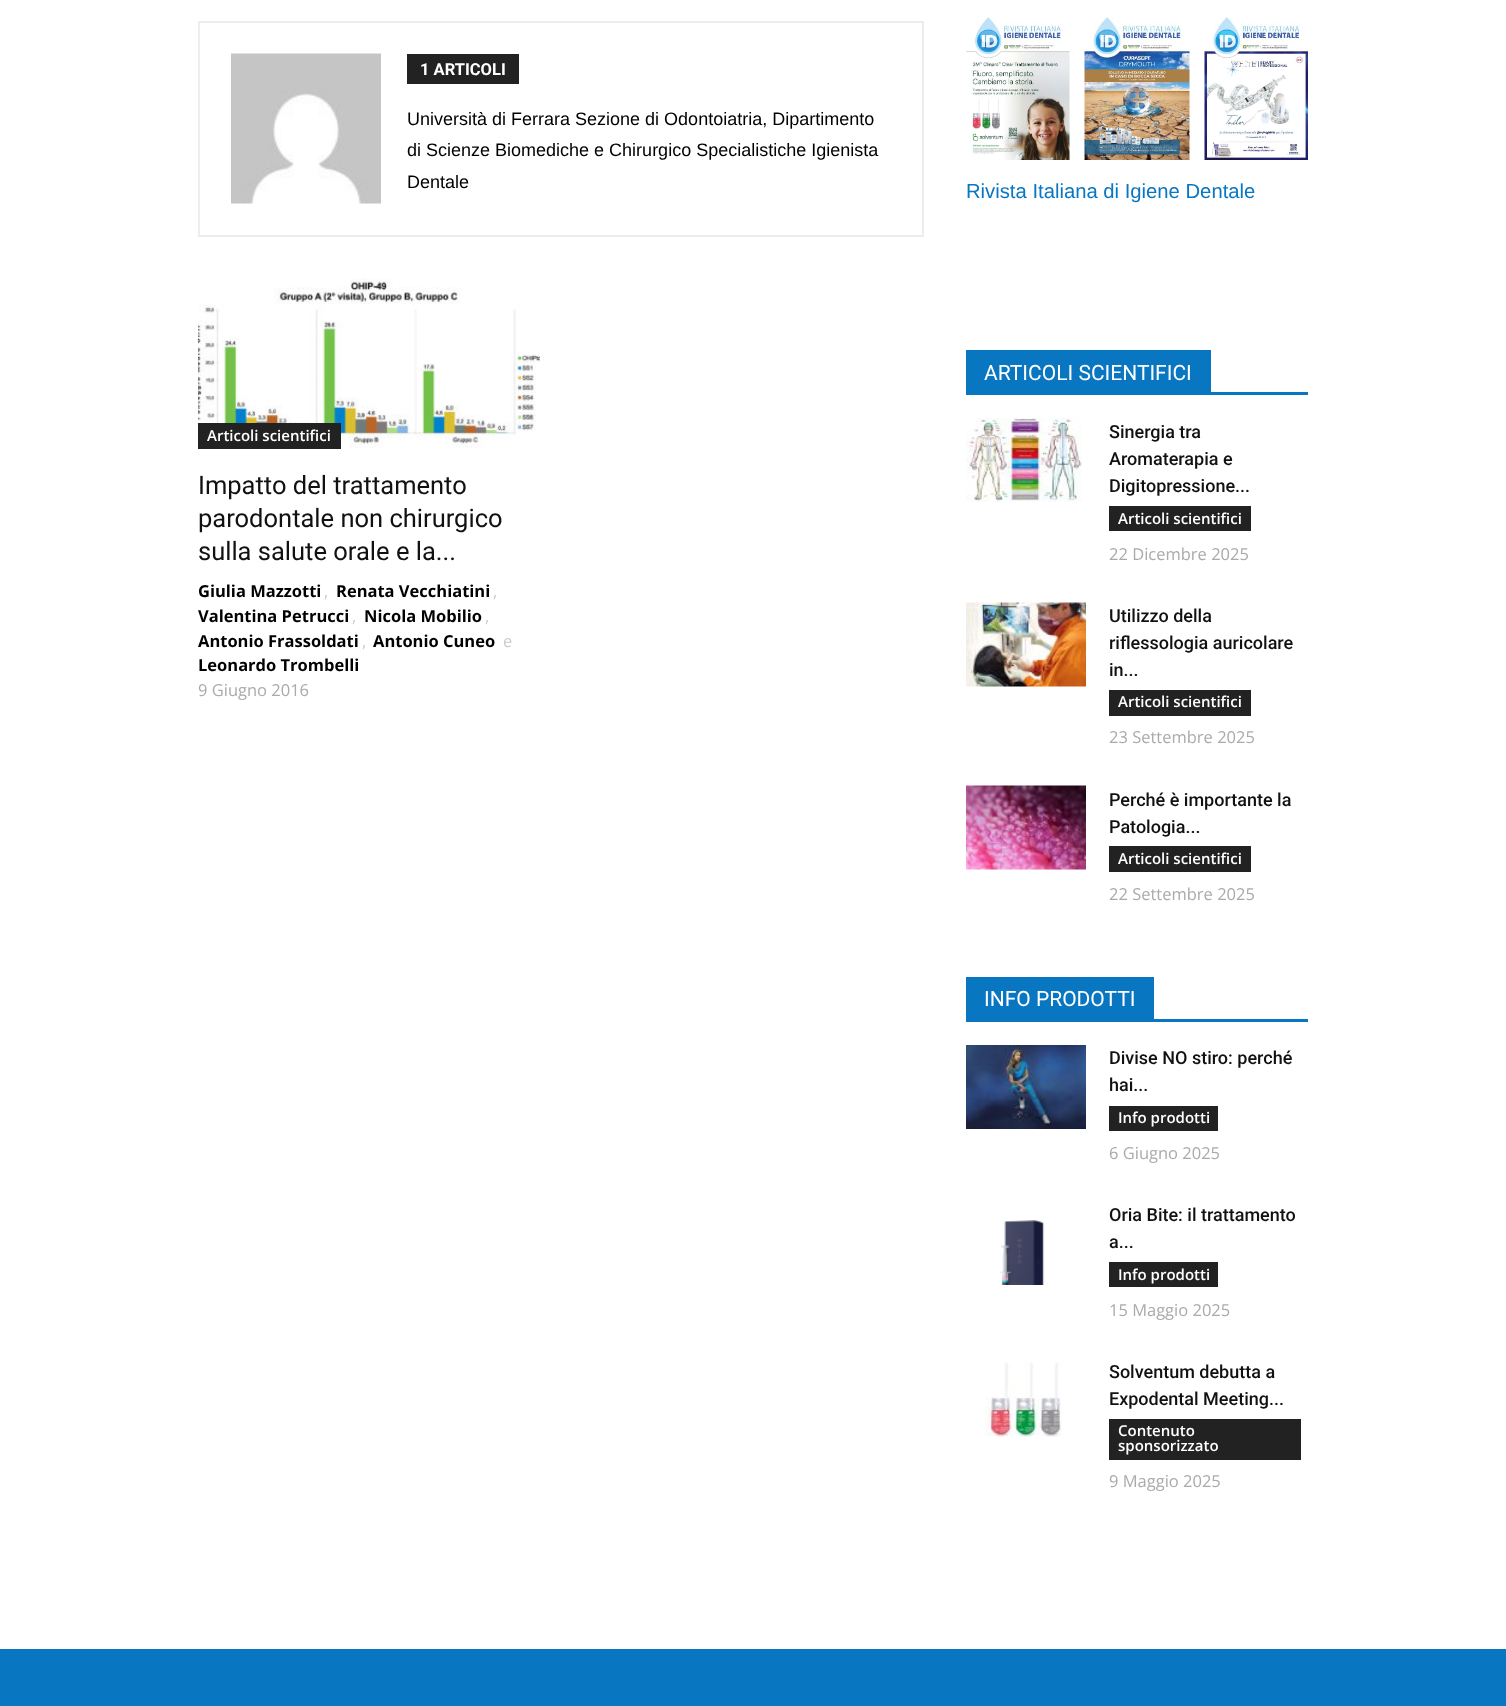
<svg xmlns="http://www.w3.org/2000/svg" width="1506" height="1706" viewBox="0 0 1506 1706">
  <style>
    .t1 { font: bold 16.5px Roboto; fill: #fff; }
    .t2 { font: 18px Liberation Sans; fill: #000; }
    .t3 { font: 600 15px Open Sans; fill: #fff; }
    .t4 { font: 25.5px Roboto; fill: #111; }
    .t5 { font: bold 16.5px Open Sans; fill: #000; }
    .t6 { font: 16.5px Open Sans; fill: #ccc; }
    .t7 { font: 16.5px Open Sans; fill: #aaa; }
    .t8 { font: 20.25px Liberation Sans; fill: #0876c1; }
    .t9 { font: 21px Roboto; fill: #fff; }
    .t10 { font: 500 18px Roboto; fill: #111; }
  </style>
  <rect width="100%" height="100%" fill="#fff"/>
  <rect x="199" y="22" width="724" height="214" fill="none" stroke="#ededed" stroke-width="2"/>
  <image x="231" y="53" width="150" height="151" href="images/1.png"/>
  <rect x="407" y="54" width="112" height="30" fill="#222"/>
  <text x="420" y="75" class="t1">1 ARTICOLI</text>
  <text x="407" y="125" class="t2">Università di Ferrara Sezione di Odontoiatria, Dipartimento</text>
  <text x="407" y="156" class="t2">di Scienze Biomediche e Chirurgico Specialistiche Igienista</text>
  <text x="407" y="188" class="t2">Dentale</text>
  <image x="198" y="278" width="342" height="170" href="images/2.png"/>
  <rect x="198" y="423" width="143" height="26" fill="#222"/>
  <text x="207" y="441" class="t3">Articoli scientifici</text>
  <text x="198" y="494" class="t4">Impatto del trattamento</text>
  <text x="198" y="527" class="t4">parodontale non chirurgico</text>
  <text x="198" y="560" class="t4">sulla salute orale e la...</text>
  <text x="198" y="597" class="t5">Giulia Mazzotti</text>
  <text x="324" y="597" class="t6">,</text>
  <text x="336" y="597" class="t5">Renata Vecchiatini</text>
  <text x="493" y="597" class="t6">,</text>
  <text x="198" y="622" class="t5">Valentina Petrucci</text>
  <text x="352" y="622" class="t6">,</text>
  <text x="364" y="622" class="t5">Nicola Mobilio</text>
  <text x="485" y="622" class="t6">,</text>
  <text x="198" y="647" class="t5">Antonio Frassoldati</text>
  <text x="362" y="647" class="t6">,</text>
  <text x="373" y="647" class="t5">Antonio Cuneo</text>
  <text x="503" y="647" class="t6">e</text>
  <text x="198" y="671" class="t5">Leonardo Trombelli</text>
  <text x="198" y="696" class="t7">9 Giugno 2016</text>
  <image x="966" y="17" width="104" height="143" href="images/3.png"/>
  <image x="1084" y="17" width="106" height="143" href="images/4.png"/>
  <image x="1204" y="13" width="104" height="147" href="images/5.png"/>
  <text x="966" y="198" class="t8">Rivista Italiana di Igiene Dentale</text>
  <rect x="966" y="392" width="342" height="3" fill="#0876c1"/>
  <rect x="966" y="350" width="245" height="42" fill="#0876c1"/>
  <text x="984" y="380" class="t9">ARTICOLI SCIENTIFICI</text>
  <image x="966" y="418" width="116" height="84" href="images/6.png"/>
  <text x="1109" y="438" class="t10">Sinergia tra</text>
  <text x="1109" y="465" class="t10">Aromaterapia e</text>
  <text x="1109" y="492" class="t10">Digitopressione...</text>
  <rect x="1109" y="506" width="142" height="25" fill="#222"/>
  <text x="1118" y="524" class="t3">Articoli scientifici</text>
  <text x="1109" y="560" class="t7">22 Dicembre 2025</text>
  <image x="966" y="602" width="120" height="85" href="images/7.png"/>
  <text x="1109" y="622" class="t10">Utilizzo della</text>
  <text x="1109" y="649" class="t10">riflessologia auricolare</text>
  <text x="1109" y="676" class="t10">in...</text>
  <rect x="1109" y="690" width="142" height="26" fill="#222"/>
  <text x="1118" y="707" class="t3">Articoli scientifici</text>
  <text x="1109" y="743" class="t7">23 Settembre 2025</text>
  <image x="966" y="785" width="120" height="85" href="images/8.png"/>
  <text x="1109" y="806" class="t10">Perché è importante la</text>
  <text x="1109" y="833" class="t10">Patologia...</text>
  <rect x="1109" y="846" width="142" height="26" fill="#222"/>
  <text x="1118" y="864" class="t3">Articoli scientifici</text>
  <text x="1109" y="900" class="t7">22 Settembre 2025</text>
  <rect x="966" y="1019" width="342" height="3" fill="#0876c1"/>
  <rect x="966" y="977" width="188" height="42" fill="#0876c1"/>
  <text x="984" y="1006" class="t9">INFO PRODOTTI</text>
  <image x="966" y="1045" width="120" height="84" href="images/9.png"/>
  <text x="1109" y="1064" class="t10">Divise NO stiro: perché</text>
  <text x="1109" y="1091" class="t10">hai...</text>
  <rect x="1109" y="1106" width="109" height="25" fill="#222"/>
  <text x="1118" y="1123" class="t3">Info prodotti</text>
  <text x="1109" y="1159" class="t7">6 Giugno 2025</text>
  <image x="999" y="1220" width="46" height="65" href="images/10.png"/>
  <text x="1109" y="1221" class="t10">Oria Bite: il trattamento</text>
  <text x="1109" y="1248" class="t10">a...</text>
  <rect x="1109" y="1262" width="109" height="25" fill="#222"/>
  <text x="1118" y="1280" class="t3">Info prodotti</text>
  <text x="1109" y="1316" class="t7">15 Maggio 2025</text>
  <image x="985" y="1362" width="77" height="75" href="images/11.png"/>
  <text x="1109" y="1378" class="t10">Solventum debutta a</text>
  <text x="1109" y="1405" class="t10">Expodental Meeting...</text>
  <rect x="1109" y="1419" width="192" height="41" fill="#222"/>
  <text x="1118" y="1436" class="t3">Contenuto</text>
  <text x="1118" y="1451" class="t3">sponsorizzato</text>
  <text x="1109" y="1487" class="t7">9 Maggio 2025</text>
  <rect x="0" y="1649" width="1506" height="57" fill="#0876c1"/>
</svg>
